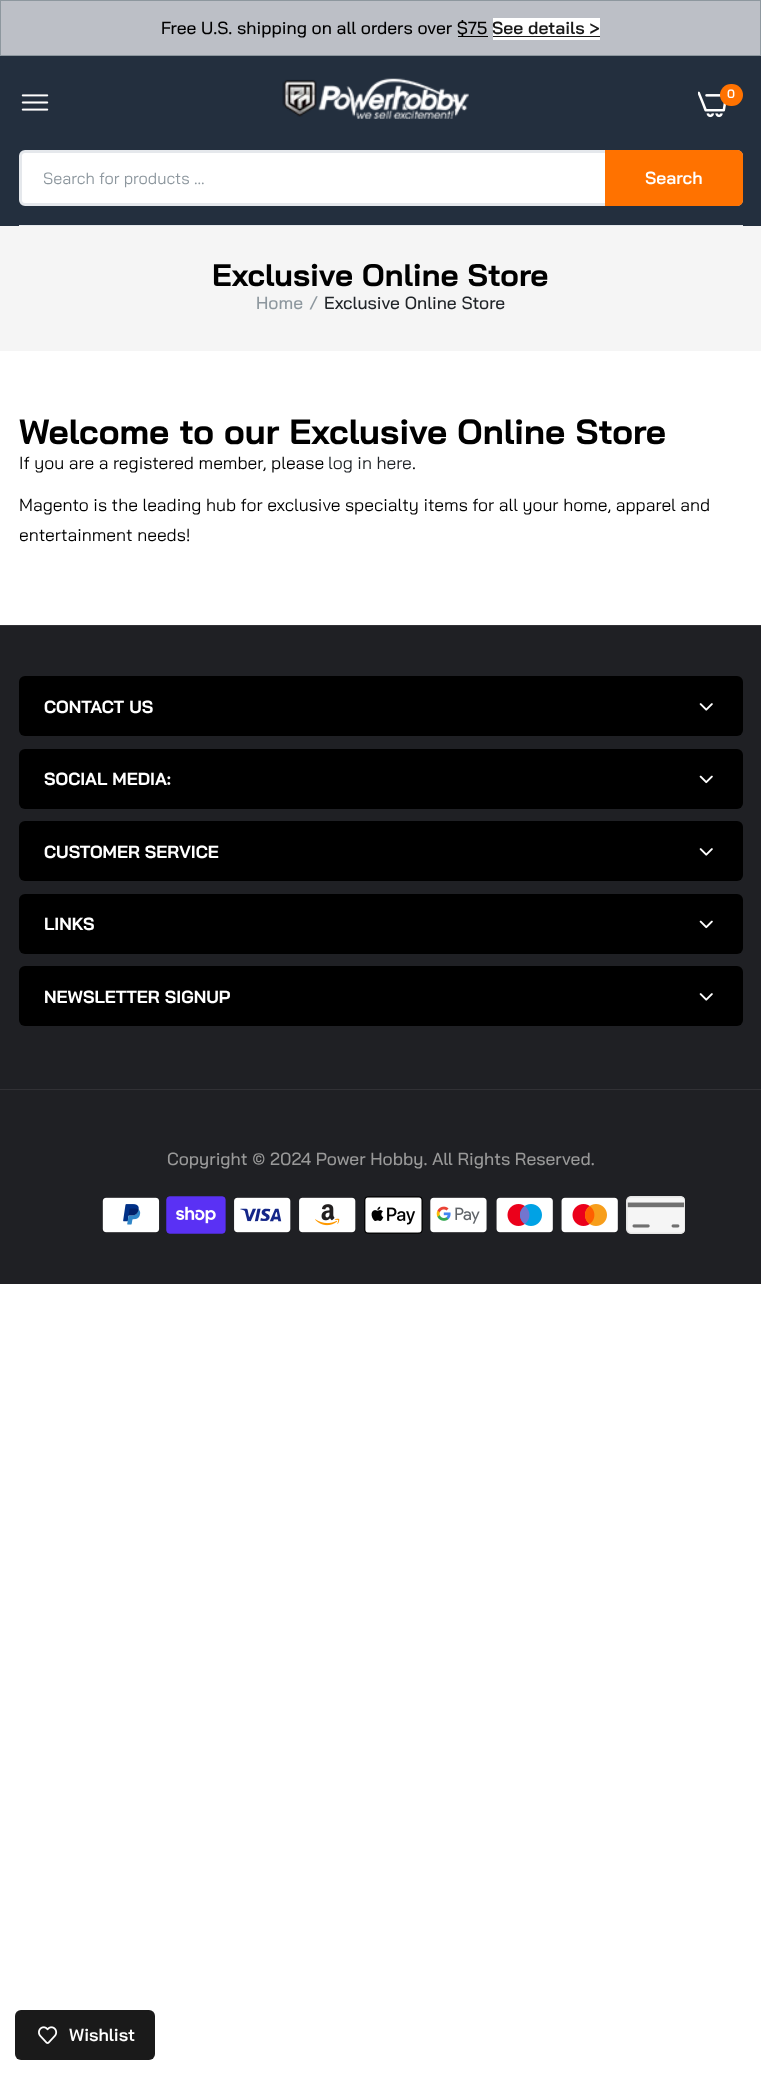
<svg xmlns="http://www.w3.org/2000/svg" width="761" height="2075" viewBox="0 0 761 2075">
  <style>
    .t1 { font: 500 17.5px Bai Jamjuree; fill: #000; }
    .t2 { font: 600 17.5px Bai Jamjuree; fill: #1a1a1a; }
    .t3 { font: 600 12px Bai Jamjuree; fill: #fff; }
    .t4 { font: 16.25px Bai Jamjuree; fill: #8d979e; }
    .t5 { font: 600 17.5px Bai Jamjuree; fill: #fff; }
    .t6 { font: bold 31.25px Bai Jamjuree; fill: #000; }
    .t7 { font: 500 17.5px Bai Jamjuree; fill: #8d979e; }
    .t8 { font: 500 17.5px Bai Jamjuree; fill: #212529; }
    .t9 { font: bold 35px Bai Jamjuree; fill: #000; }
    .t10 { font: 17.5px Bai Jamjuree; fill: #000; }
    .t11 { font: 17.5px Bai Jamjuree; fill: #212529; }
    .t12 { font: bold 17.5px Bai Jamjuree; fill: #fff; }
    .t13 { font: 500 17.5px Bai Jamjuree; fill: #999; }
  </style>
  <rect width="100%" height="100%" fill="#fff"/>
  <rect x="0.5" y="0.5" width="760" height="55" fill="#bcbfc6" stroke="#8d979e"/>
  <text x="161" y="34" class="t1">Free U.S. shipping on all orders over $75</text>
  <rect x="493" y="18" width="107" height="22" fill="#fff"/>
  <text x="492" y="34" class="t2">See details &gt;</text>
  <rect x="493" y="36" width="107" height="1" fill="#1a1a1a"/>
  <rect x="458" y="36" width="30" height="1" fill="#000"/>
  <rect x="0" y="56" width="761" height="170" fill="#232f3e"/>
  <image x="21" y="94" width="28" height="17" href="images/1.png"/>
  <image x="282" y="78" width="187" height="41" href="images/2.png"/>
  <image x="698" y="91" width="28" height="27" href="images/3.png"/>
  <rect x="720" y="84" width="23" height="22" rx="11" fill="#ff7200"/>
  <text x="727" y="98" class="t3">0</text>
  <rect x="19" y="225" width="724" height="1" fill="#e5e8ec"/>
  <rect x="20.5" y="151.5" width="721" height="53" rx="4.5" fill="#fff" stroke="#e5e8ec" stroke-width="3"/>
  <text x="43" y="184" class="t4">Search for products ...</text>
  <path d="M605 150H737C740.5 150 743 152.5 743 156V200C743 203.5 740.5 206 737 206H605Z" fill="#ff7200"/>
  <text x="645" y="184" class="t5">Search</text>
  <rect x="0" y="226" width="761" height="125" fill="#f5f5f5"/>
  <text x="212" y="286" class="t6">Exclusive Online Store</text>
  <text x="256" y="309" class="t7">Home</text>
  <text x="309" y="309" class="t7">/</text>
  <text x="324" y="309" class="t8">Exclusive Online Store</text>
  <text x="19" y="444" class="t9">Welcome to our Exclusive Online Store</text>
  <text x="19" y="469" class="t10">If you are a registered member, please</text>
  <text x="328" y="469" class="t11">log in here</text>
  <text x="412" y="469" class="t10">.</text>
  <text x="19" y="511" class="t10">Magento is the leading hub for exclusive specialty items for all your home, apparel and</text>
  <text x="19" y="541" class="t10">entertainment needs!</text>
  <rect x="0" y="626" width="761" height="463" fill="#1f2024"/>
  <rect x="0" y="625" width="761" height="1" fill="#313135"/>
  <rect x="19" y="676" width="724" height="60" rx="6" fill="#000"/>
  <text x="44" y="713" class="t12">CONTACT US</text>
  <image x="699" y="703" width="14" height="8" href="images/4.png"/>
  <rect x="19" y="749" width="724" height="60" rx="6" fill="#000"/>
  <text x="44" y="785" class="t12">SOCIAL MEDIA:</text>
  <image x="699" y="775" width="14" height="9" href="images/5.png"/>
  <rect x="19" y="821" width="724" height="60" rx="6" fill="#000"/>
  <text x="44" y="858" class="t12">CUSTOMER SERVICE</text>
  <image x="699" y="848" width="14" height="8" href="images/4.png"/>
  <rect x="19" y="894" width="724" height="60" rx="6" fill="#000"/>
  <text x="44" y="930" class="t12">LINKS</text>
  <image x="699" y="920" width="14" height="9" href="images/5.png"/>
  <rect x="19" y="966" width="724" height="60" rx="6" fill="#000"/>
  <text x="44" y="1003" class="t12">NEWSLETTER SIGNUP</text>
  <image x="699" y="993" width="14" height="8" href="images/4.png"/>
  <rect x="0" y="1090" width="761" height="194" fill="#1f2024"/>
  <rect x="0" y="1089" width="761" height="1" fill="#313135"/>
  <text x="167" y="1165" class="t13">Copyright © 2024 Power Hobby. All Rights Reserved.</text>
  <image x="102" y="1197" width="58" height="36" href="images/6.png"/>
  <image x="166" y="1196" width="60" height="38" href="images/7.png"/>
  <image x="234" y="1197" width="57" height="36" href="images/8.png"/>
  <image x="299" y="1197" width="57" height="36" href="images/9.png"/>
  <image x="364" y="1196" width="59" height="38" href="images/10.png"/>
  <image x="430" y="1197" width="57" height="36" href="images/11.png"/>
  <image x="496" y="1197" width="57" height="36" href="images/12.png"/>
  <image x="561" y="1197" width="57" height="36" href="images/13.png"/>
  <image x="626" y="1196" width="59" height="38" href="images/14.png"/>
  <rect x="15" y="2010" width="140" height="50" rx="6" fill="#1a1a1a"/>
  <image x="38" y="2026" width="20" height="18" href="images/15.png"/>
  <text x="69" y="2041" class="t5">Wishlist</text>
</svg>
